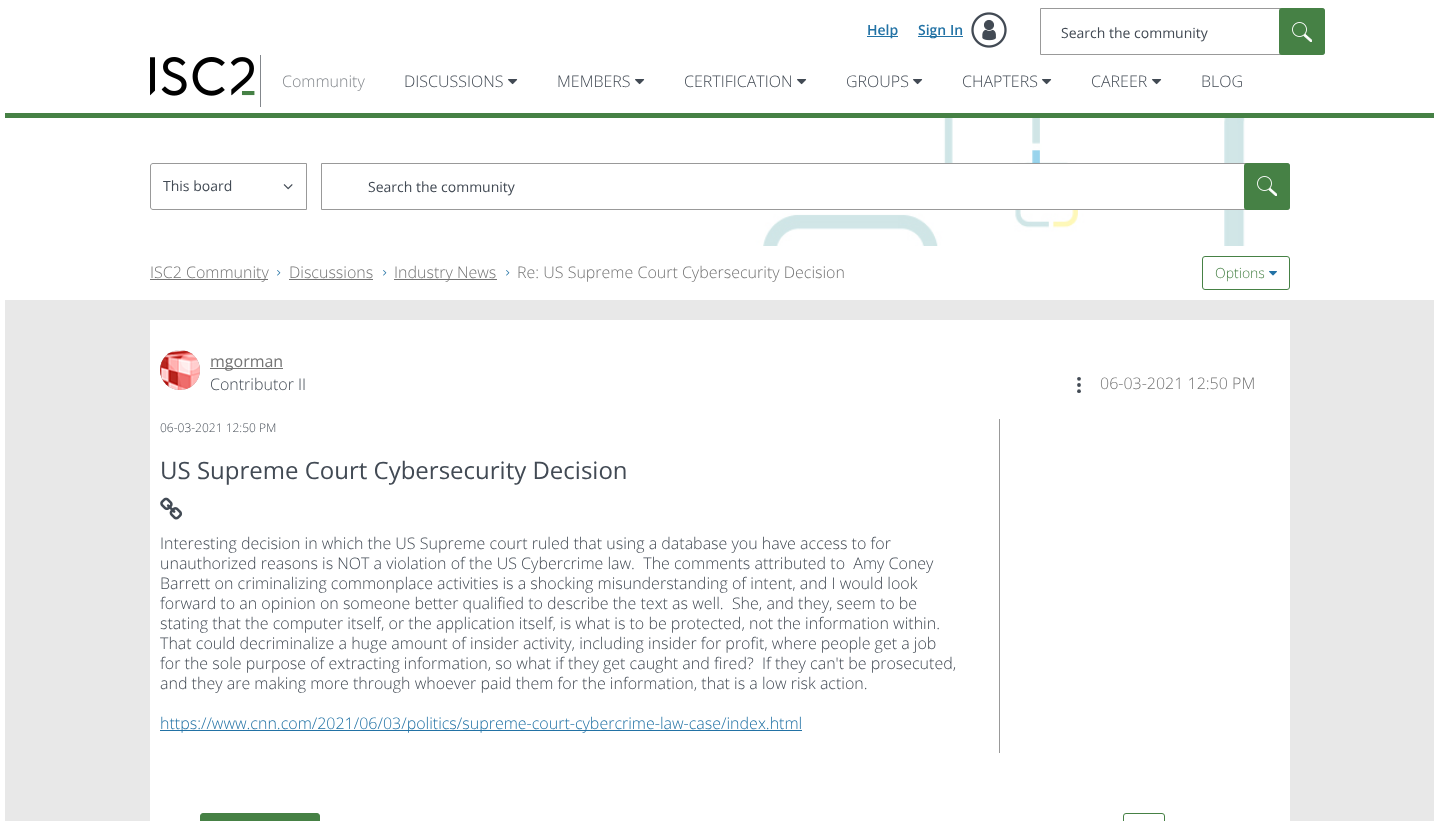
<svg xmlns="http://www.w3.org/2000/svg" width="1439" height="821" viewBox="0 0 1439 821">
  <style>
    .t1 { font: 600 14px Open Sans; fill: #2272a5; }
    .t2 { font: 14px Open Sans; fill: #424a54; }
    .t3 { font: 300 16px Open Sans; fill: #83878c; }
    .t4 { font: 300 16px Open Sans; fill: #424a54; }
    .t5 { font: 300 16px Open Sans; fill: #747474; }
    .t6 { font: 300 14px Open Sans; fill: #468145; }
    .t7 { font: 16px Open Sans; fill: #747474; }
    .t8 { font: 300 12px Open Sans; fill: #424a54; }
    .t9 { font: 24px Open Sans; fill: #424a54; }
    .t10 { font: 300 16px Open Sans; fill: #2272a5; }
  </style>
  <rect width="100%" height="100%" fill="#fff"/>
  <rect x="5" y="300" width="1429" height="521" fill="#e8e8e8"/>
  <rect x="867" y="36" width="31" height="1" fill="#2272a5"/>
  <text x="867" y="35" class="t1">Help</text>
  <rect x="918" y="36" width="45" height="1" fill="#2272a5"/>
  <text x="918" y="35" class="t1">Sign In</text>
  <image x="971" y="12" width="36" height="36" href="images/1.png"/>
  <path d="M1040.5 8.5H1322C1323.5 8.5 1324.5 9.5 1324.5 11V52C1324.5 53.5 1323.5 54.5 1322 54.5H1040.5Z" fill="none" stroke="#999"/>
  <text x="1061" y="38" class="t2">Search the community</text>
  <rect x="1279" y="8" width="46" height="47" rx="3" fill="#468145"/>
  <image x="1292" y="22" width="20" height="20" href="images/2.png"/>
  <rect x="5" y="113" width="1429" height="5" fill="#468145"/>
  <rect x="260" y="55" width="1" height="52" fill="#83878c"/>
  <image x="150" y="57" width="105" height="39" href="images/3.png"/>
  <text x="282" y="87" class="t3">Community</text>
  <text x="404" y="87" class="t4">DISCUSSIONS</text>
  <image x="508" y="79" width="10" height="6" href="images/4.png"/>
  <text x="557" y="87" class="t4">MEMBERS</text>
  <image x="635" y="79" width="10" height="6" href="images/4.png"/>
  <text x="684" y="87" class="t4">CERTIFICATION</text>
  <image x="797" y="79" width="10" height="6" href="images/4.png"/>
  <text x="846" y="87" class="t4">GROUPS</text>
  <image x="913" y="79" width="10" height="6" href="images/4.png"/>
  <text x="962" y="87" class="t4">CHAPTERS</text>
  <image x="1042" y="79" width="10" height="6" href="images/4.png"/>
  <text x="1091" y="87" class="t4">CAREER</text>
  <image x="1152" y="79" width="10" height="6" href="images/4.png"/>
  <text x="1201" y="87" class="t4">BLOG</text>
  <image x="5" y="118" width="1429" height="128" href="images/5.png"/>
  <path d="M153 163.5H306.5V209.5H153C151.5 209.5 150.5 208.5 150.5 207V166C150.5 164.5 151.5 163.5 153 163.5Z" fill="none" stroke="#999"/>
  <text x="163" y="191" class="t2">This board</text>
  <image x="283" y="184" width="10" height="6" href="images/6.png"/>
  <path d="M321.5 163.5H1287C1288.5 163.5 1289.5 164.5 1289.5 166V207C1289.5 208.5 1288.5 209.5 1287 209.5H321.5Z" fill="#fff" stroke="#999"/>
  <text x="368" y="192" class="t2">Search the community</text>
  <rect x="1244" y="163" width="46" height="47" rx="3" fill="#468145"/>
  <image x="1257" y="176" width="20" height="20" href="images/2.png"/>
  <rect x="150" y="279" width="118" height="1" fill="#747474"/>
  <text x="150" y="278" class="t5">ISC2 Community</text>
  <image x="277" y="270" width="4" height="6" href="images/7.png"/>
  <text x="289" y="278" class="t5">Discussions</text>
  <rect x="289" y="279" width="84" height="1" fill="#747474"/>
  <image x="383" y="270" width="4" height="6" href="images/7.png"/>
  <rect x="394" y="279" width="103" height="1" fill="#747474"/>
  <text x="394" y="278" class="t5">Industry News</text>
  <image x="506" y="270" width="4" height="6" href="images/7.png"/>
  <text x="517" y="278" class="t5">Re: US Supreme Court Cybersecurity Decision</text>
  <rect x="1202.5" y="256.5" width="87" height="33" rx="2.5" fill="none" stroke="#468145"/>
  <text x="1215" y="278" class="t6">Options</text>
  <image x="1269" y="271" width="8" height="5" href="images/8.png"/>
  <rect x="150" y="320" width="1140" height="501" fill="#fff"/>
  <rect x="160" y="350" width="40" height="40" rx="20" fill="#999" filter="blur(0.5px)"/>
  <image x="160" y="350" width="40" height="40" href="images/9.png"/>
  <rect x="210" y="368" width="73" height="1" fill="#747474"/>
  <text x="210" y="367" class="t7">mgorman</text>
  <text x="210" y="390" class="t4">Contributor II</text>
  <circle cx="1079" cy="378.8" r="1.9" fill="#424a54"/>
  <circle cx="1079" cy="385" r="1.9" fill="#424a54"/>
  <circle cx="1079" cy="391.2" r="1.9" fill="#424a54"/>
  <text x="1100" y="389" class="t5">06-03-2021 12:50 PM</text>
  <rect x="999" y="419" width="1" height="334" fill="#999"/>
  <text x="160" y="432" class="t8">06-03-2021 12:50 PM</text>
  <text x="160" y="479" class="t9">US Supreme Court Cybersecurity Decision</text>
  <image x="160" y="497" width="23" height="23" href="images/10.png"/>
  <text x="160" y="549" class="t4">Interesting decision in which the US Supreme court ruled that using a database you have access to for</text>
  <text x="160" y="569" class="t4" xml:space="preserve">unauthorized reasons is NOT a violation of the US Cybercrime law.  The comments attributed to  Amy Coney</text>
  <text x="160" y="589" class="t4">Barrett on criminalizing commonplace activities is a shocking misunderstanding of intent, and I would look</text>
  <text x="160" y="609" class="t4" xml:space="preserve">forward to an opinion on someone better qualified to describe the text as well.  She, and they, seem to be</text>
  <text x="160" y="629" class="t4">stating that the computer itself, or the application itself, is what is to be protected, not the information within.</text>
  <text x="160" y="649" class="t4">That could decriminalize a huge amount of insider activity, including insider for profit, where people get a job</text>
  <text x="160" y="669" class="t4" xml:space="preserve">for the sole purpose of extracting information, so what if they get caught and fired?  If they can't be prosecuted,</text>
  <text x="160" y="689" class="t4">and they are making more through whoever paid them for the information, that is a low risk action.</text>
  <rect x="160" y="730" width="642" height="1" fill="#2272a5"/>
  <text x="160" y="729" class="t10">https://www.cnn.com/2021/06/03/politics/supreme-court-cybercrime-law-case/index.html</text>
  <rect x="200.5" y="813.5" width="119" height="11" rx="2.5" fill="#468145" stroke="#468145"/>
  <rect x="1123.5" y="813.5" width="41" height="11" rx="2.5" fill="none" stroke="#468145"/>
</svg>
